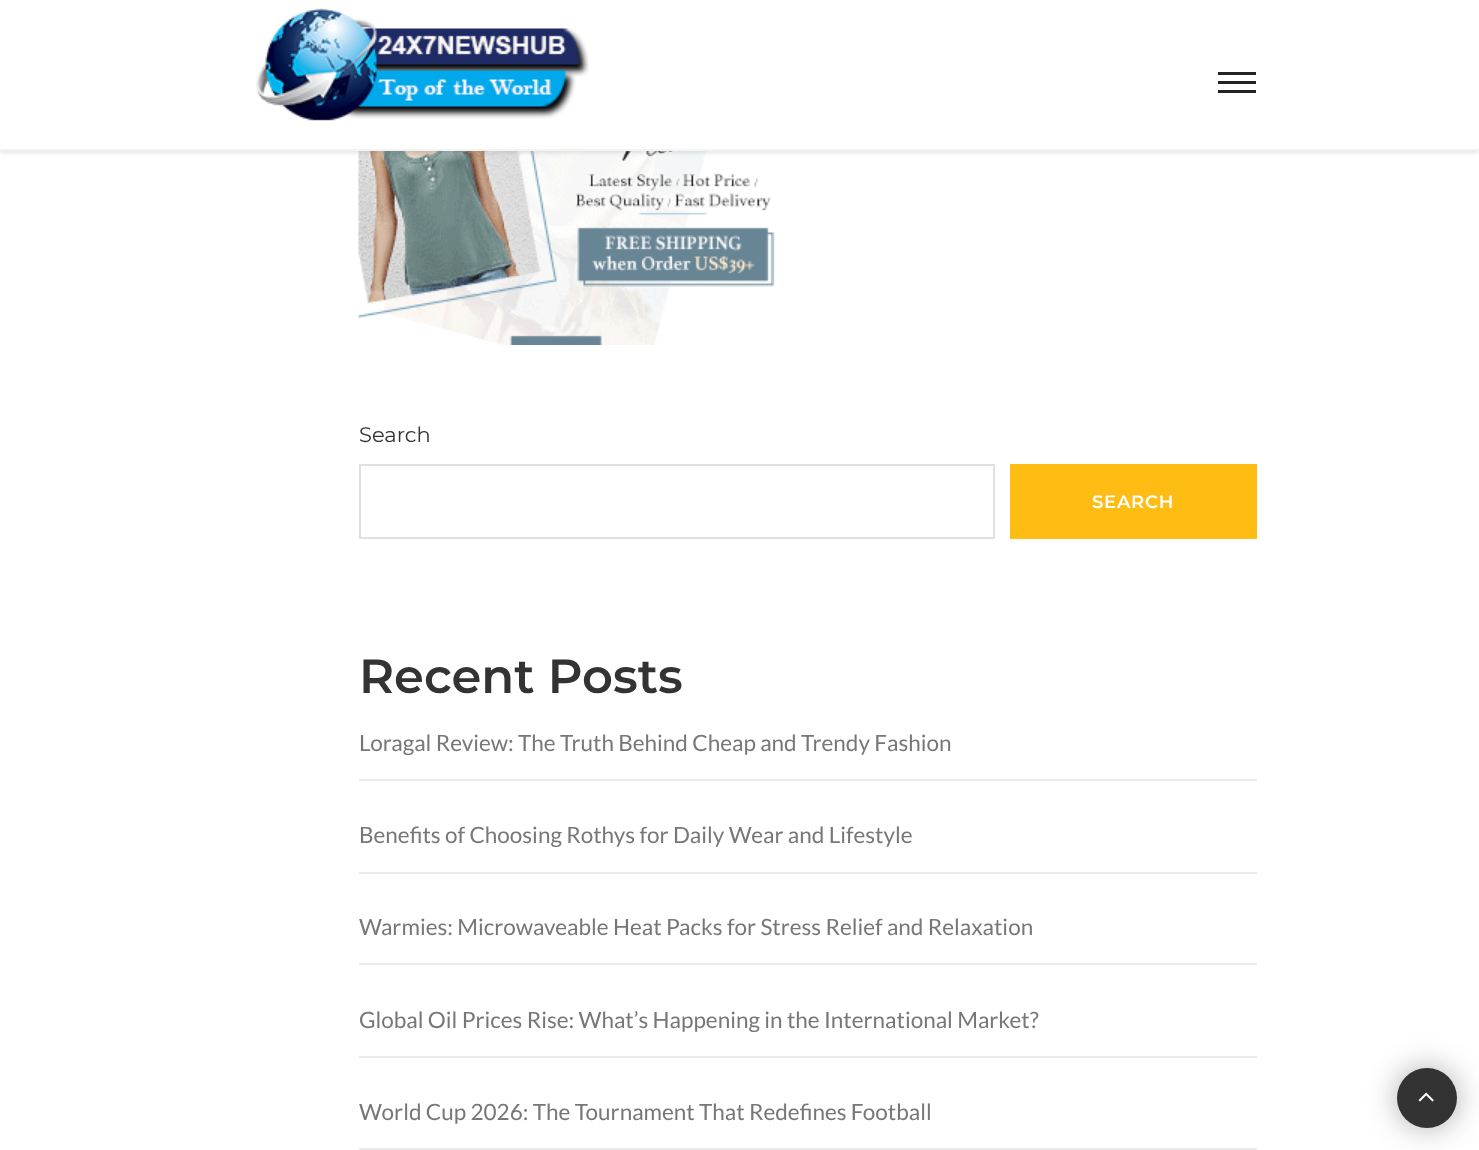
<svg xmlns="http://www.w3.org/2000/svg" width="1479" height="1150" viewBox="0 0 1479 1150">
  <style>
    .t1 { font: 21px Montserrat; fill: #333; }
    .t2 { font: 600 18px Montserrat; letter-spacing: 0.75px; fill: #fff; }
    .t3 { font: 600 48px Montserrat; fill: #333; }
    .t4 { font: 22.5px Lato; fill: #777; }
  </style>
  <rect width="100%" height="100%" fill="#fff"/>
  <image x="358" y="151" width="442" height="194" href="images/2.png"/>
  <rect x="0" y="3" width="1479" height="150" fill="#0000001a" filter="blur(2px)"/>
  <rect x="0" y="0" width="1479" height="149" fill="#fff"/>
  <rect x="0" y="149" width="1479" height="2" fill="#f3f3f3"/>
  <image x="256" y="8" width="333" height="113" href="images/1.png"/>
  <rect x="1218" y="72" width="38" height="3" fill="#232323"/>
  <rect x="1218" y="81" width="38" height="3" fill="#232323"/>
  <rect x="1218" y="90" width="38" height="3" fill="#232323"/>
  <text x="359" y="442" class="t1">Search</text>
  <rect x="360" y="465" width="634" height="73" fill="none" stroke="#e0e0e0" stroke-width="2"/>
  <rect x="1010" y="464" width="247" height="75" fill="#ffbc13"/>
  <text x="1092" y="508" class="t2">SEARCH</text>
  <text x="359" y="693" class="t3">Recent Posts</text>
  <rect x="359" y="779" width="898" height="2" fill="#ebebeb"/>
  <text x="359" y="751" class="t4">Loragal Review: The Truth Behind Cheap and Trendy Fashion</text>
  <rect x="359" y="872" width="898" height="2" fill="#ebebeb"/>
  <text x="359" y="843" class="t4">Benefits of Choosing Rothys for Daily Wear and Lifestyle</text>
  <rect x="359" y="963" width="898" height="2" fill="#ebebeb"/>
  <text x="359" y="935" class="t4">Warmies: Microwaveable Heat Packs for Stress Relief and Relaxation</text>
  <rect x="359" y="1056" width="898" height="2" fill="#ebebeb"/>
  <text x="359" y="1028" class="t4">Global Oil Prices Rise: What’s Happening in the International Market?</text>
  <rect x="359" y="1148" width="898" height="2" fill="#ebebeb"/>
  <text x="359" y="1120" class="t4">World Cup 2026: The Tournament That Redefines Football</text>
  <rect x="1397" y="1068" width="60" height="60" rx="30" fill="#33333366" filter="blur(15px)"/>
  <circle cx="1427" cy="1098" r="30" fill="#333"/>
  <image x="1418" y="1092" width="16" height="10" href="images/3.png"/>
</svg>
